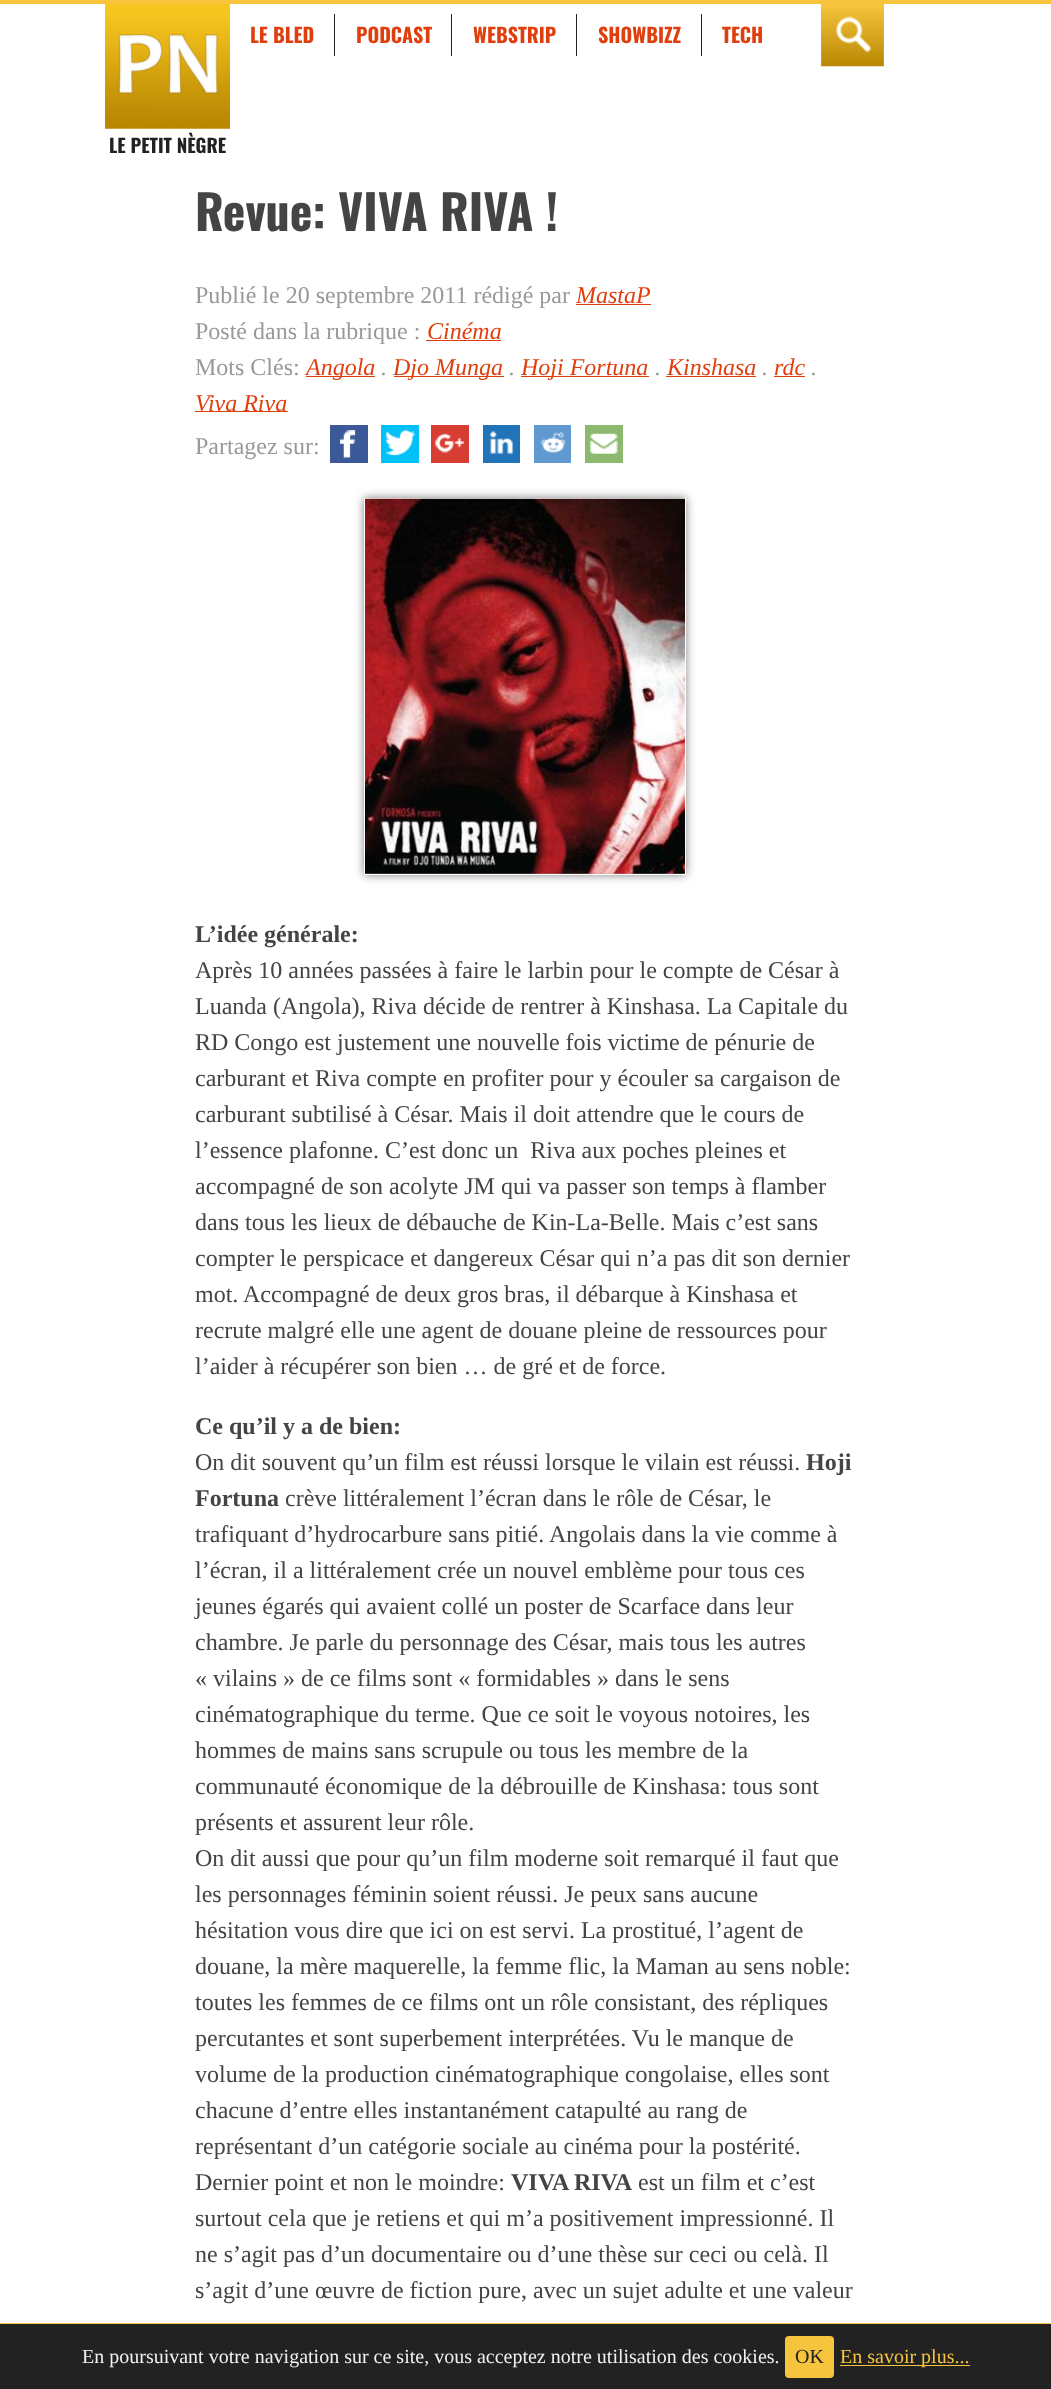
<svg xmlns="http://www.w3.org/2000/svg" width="1051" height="2389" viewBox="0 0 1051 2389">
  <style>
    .t1 { font: bold 20px Oswald; fill: #e03e0d; }
    .t2 { font: bold 18.75px Oswald; fill: #222; }
    .t3 { font: bold 48px Oswald; fill: #444; }
    .t4 { font: 24px Liberation Serif; fill: #999; }
    .t5 { font: italic 24px Liberation Serif; fill: #e03e0d; }
    .t6 { font: italic 24px Liberation Serif; fill: #999; }
    .t7 { font: bold 24px Liberation Serif; fill: #444; }
    .t8 { font: 24px Liberation Serif; fill: #444; }
    .t9 { font: 20px Liberation Serif; fill: #f1f1f1; }
    .t10 { font: 20px Liberation Serif; fill: #222; }
    .t11 { font: 20px Liberation Serif; fill: #f7c43d; }
  </style>
  <rect width="100%" height="100%" fill="#fff"/>
  <rect x="0" y="0" width="1051" height="4" fill="#f7c43d"/>
  <text x="250" y="43" class="t1">LE BLED</text>
  <rect x="334" y="14" width="1" height="42" fill="#222"/>
  <text x="356" y="43" class="t1">PODCAST</text>
  <rect x="451" y="14" width="1" height="42" fill="#222"/>
  <text x="473" y="43" class="t1">WEBSTRIP</text>
  <rect x="576" y="14" width="1" height="42" fill="#222"/>
  <text x="598" y="43" class="t1">SHOWBIZZ</text>
  <rect x="701" y="14" width="1" height="42" fill="#222"/>
  <text x="722" y="43" class="t1">TECH</text>
  <rect x="821" y="4" width="63" height="62" fill="#f7c43d"/>
  <image x="821" y="8" width="63" height="59" href="images/1.png"/>
  <image x="105" y="3" width="125" height="126" href="images/2.png"/>
  <text x="109" y="153" class="t2">LE PETIT NÈGRE</text>
  <text x="195" y="231" class="t3">Revue: VIVA RIVA !</text>
  <text x="195" y="303" class="t4">Publié le 20 septembre 2011 rédigé par</text>
  <text x="576" y="303" class="t5">MastaP</text>
  <rect x="576" y="304" width="75" height="1" fill="#e03e0d"/>
  <text x="195" y="339" class="t4">Posté dans la rubrique :</text>
  <text x="427" y="339" class="t5">Cinéma</text>
  <rect x="426" y="340" width="75" height="1" fill="#e03e0d"/>
  <text x="195" y="375" class="t4">Mots Clés:</text>
  <rect x="306" y="376" width="69" height="1" fill="#e03e0d"/>
  <text x="306" y="375" class="t5">Angola</text>
  <text x="381" y="375" class="t6">.</text>
  <rect x="394" y="376" width="110" height="1" fill="#e03e0d"/>
  <text x="393" y="375" class="t5">Djo Munga</text>
  <text x="509" y="375" class="t6">.</text>
  <rect x="521" y="376" width="128" height="1" fill="#e03e0d"/>
  <text x="521" y="375" class="t5">Hoji Fortuna</text>
  <text x="655" y="375" class="t6">.</text>
  <text x="667" y="375" class="t5">Kinshasa</text>
  <text x="762" y="375" class="t6">.</text>
  <rect x="666" y="376" width="90" height="1" fill="#e03e0d"/>
  <text x="774" y="375" class="t5">rdc</text>
  <text x="811" y="375" class="t6">.</text>
  <rect x="774" y="376" width="31" height="1" fill="#e03e0d"/>
  <rect x="195" y="411" width="93" height="1" fill="#e03e0d"/>
  <text x="195" y="411" class="t5">Viva Riva</text>
  <text x="195" y="454" class="t4">Partagez sur:</text>
  <rect x="330" y="425" width="38" height="38" fill="#3b5998"/>
  <image x="339" y="429" width="17" height="29" href="images/3.png"/>
  <rect x="381" y="425" width="38" height="38" fill="#00c0f7"/>
  <image x="385" y="429" width="30" height="27" href="images/4.png"/>
  <rect x="431" y="425" width="38" height="38" fill="#d73d32"/>
  <image x="435" y="433" width="29" height="20" href="images/5.png"/>
  <rect x="483" y="425" width="37" height="38" fill="#2274b9"/>
  <image x="489" y="431" width="24" height="23" href="images/6.png"/>
  <rect x="534" y="425" width="37" height="38" fill="#5f99cf"/>
  <image x="541" y="432" width="25" height="21" href="images/7.png"/>
  <rect x="585" y="425" width="38" height="38" fill="#8bb96d"/>
  <image x="589" y="433" width="29" height="21" href="images/8.png"/>
  <rect x="364" y="498" width="322" height="377" fill="#00000080" filter="blur(5px)"/>
  <rect x="364.5" y="498.5" width="321" height="376" fill="none" stroke="#fff"/>
  <image x="365" y="498" width="320" height="376" href="images/9.png"/>
  <text x="195" y="942" class="t7">L’idée générale:</text>
  <text x="195" y="978" class="t8">Après 10 années passées à faire le larbin pour le compte de César à</text>
  <text x="195" y="1014" class="t8">Luanda (Angola), Riva décide de rentrer à Kinshasa. La Capitale du</text>
  <text x="195" y="1050" class="t8">RD Congo est justement une nouvelle fois victime de pénurie de</text>
  <text x="195" y="1086" class="t8">carburant et Riva compte en profiter pour y écouler sa cargaison de</text>
  <text x="195" y="1122" class="t8">carburant subtilisé à César. Mais il doit attendre que le cours de</text>
  <text x="195" y="1158" class="t8" xml:space="preserve">l’essence plafonne. C’est donc un  Riva aux poches pleines et</text>
  <text x="195" y="1194" class="t8">accompagné de son acolyte JM qui va passer son temps à flamber</text>
  <text x="195" y="1230" class="t8">dans tous les lieux de débauche de Kin-La-Belle. Mais c’est sans</text>
  <text x="195" y="1266" class="t8">compter le perspicace et dangereux César qui n’a pas dit son dernier</text>
  <text x="195" y="1302" class="t8">mot. Accompagné de deux gros bras, il débarque à Kinshasa et</text>
  <text x="195" y="1338" class="t8">recrute malgré elle une agent de douane pleine de ressources pour</text>
  <text x="195" y="1374" class="t8">l’aider à récupérer son bien … de gré et de force.</text>
  <text x="195" y="1434" class="t7">Ce qu’il y a de bien:</text>
  <text x="195" y="1470" class="t8">On dit souvent qu’un film est réussi lorsque le vilain est réussi.</text>
  <text x="806" y="1470" class="t7">Hoji</text>
  <text x="195" y="1506" class="t7">Fortuna</text>
  <text x="285" y="1506" class="t8">crève littéralement l’écran dans le rôle de César, le</text>
  <text x="195" y="1542" class="t8">trafiquant d’hydrocarbure sans pitié. Angolais dans la vie comme à</text>
  <text x="195" y="1578" class="t8">l’écran, il a littéralement crée un nouvel emblème pour tous ces</text>
  <text x="195" y="1614" class="t8">jeunes égarés qui avaient collé un poster de Scarface dans leur</text>
  <text x="195" y="1650" class="t8">chambre. Je parle du personnage des César, mais tous les autres</text>
  <text x="195" y="1686" class="t8">« vilains » de ce films sont « formidables » dans le sens</text>
  <text x="195" y="1722" class="t8">cinématographique du terme. Que ce soit le voyous notoires, les</text>
  <text x="195" y="1758" class="t8">hommes de mains sans scrupule ou tous les membre de la</text>
  <text x="195" y="1794" class="t8">communauté économique de la débrouille de Kinshasa: tous sont</text>
  <text x="195" y="1830" class="t8">présents et assurent leur rôle.</text>
  <text x="195" y="1866" class="t8">On dit aussi que pour qu’un film moderne soit remarqué il faut que</text>
  <text x="195" y="1902" class="t8">les personnages féminin soient réussi. Je peux sans aucune</text>
  <text x="195" y="1938" class="t8">hésitation vous dire que ici on est servi. La prostitué, l’agent de</text>
  <text x="195" y="1974" class="t8">douane, la mère maquerelle, la femme flic, la Maman au sens noble:</text>
  <text x="195" y="2010" class="t8">toutes les femmes de ce films ont un rôle consistant, des répliques</text>
  <text x="195" y="2046" class="t8">percutantes et sont superbement interprétées. Vu le manque de</text>
  <text x="195" y="2082" class="t8">volume de la production cinématographique congolaise, elles sont</text>
  <text x="195" y="2118" class="t8">chacune d’entre elles instantanément catapulté au rang de</text>
  <text x="195" y="2154" class="t8">représentant d’un catégorie sociale au cinéma pour la postérité.</text>
  <text x="195" y="2190" class="t8">Dernier point et non le moindre:</text>
  <text x="511" y="2190" class="t7">VIVA RIVA</text>
  <text x="638" y="2190" class="t8">est un film et c’est</text>
  <text x="195" y="2226" class="t8">surtout cela que je retiens et qui m’a positivement impressionné. Il</text>
  <text x="195" y="2262" class="t8">ne s’agit pas d’un documentaire ou d’une thèse sur ceci ou celà. Il</text>
  <text x="195" y="2298" class="t8">s’agit d’une œuvre de fiction pure, avec un sujet adulte et une valeur</text>
  <rect x="0" y="2324" width="1051" height="65" fill="#222"/>
  <rect x="0" y="2323" width="1051" height="1" fill="#f7c43d"/>
  <text x="82" y="2363" class="t9">En poursuivant votre navigation sur ce site, vous acceptez notre utilisation des cookies.</text>
  <rect x="785" y="2336" width="49" height="42" rx="4" fill="#f7c43d"/>
  <text x="795" y="2363" class="t10">OK</text>
  <rect x="840" y="2365" width="130" height="1" fill="#f7c43d"/>
  <text x="840" y="2363" class="t11">En savoir plus...</text>
</svg>
